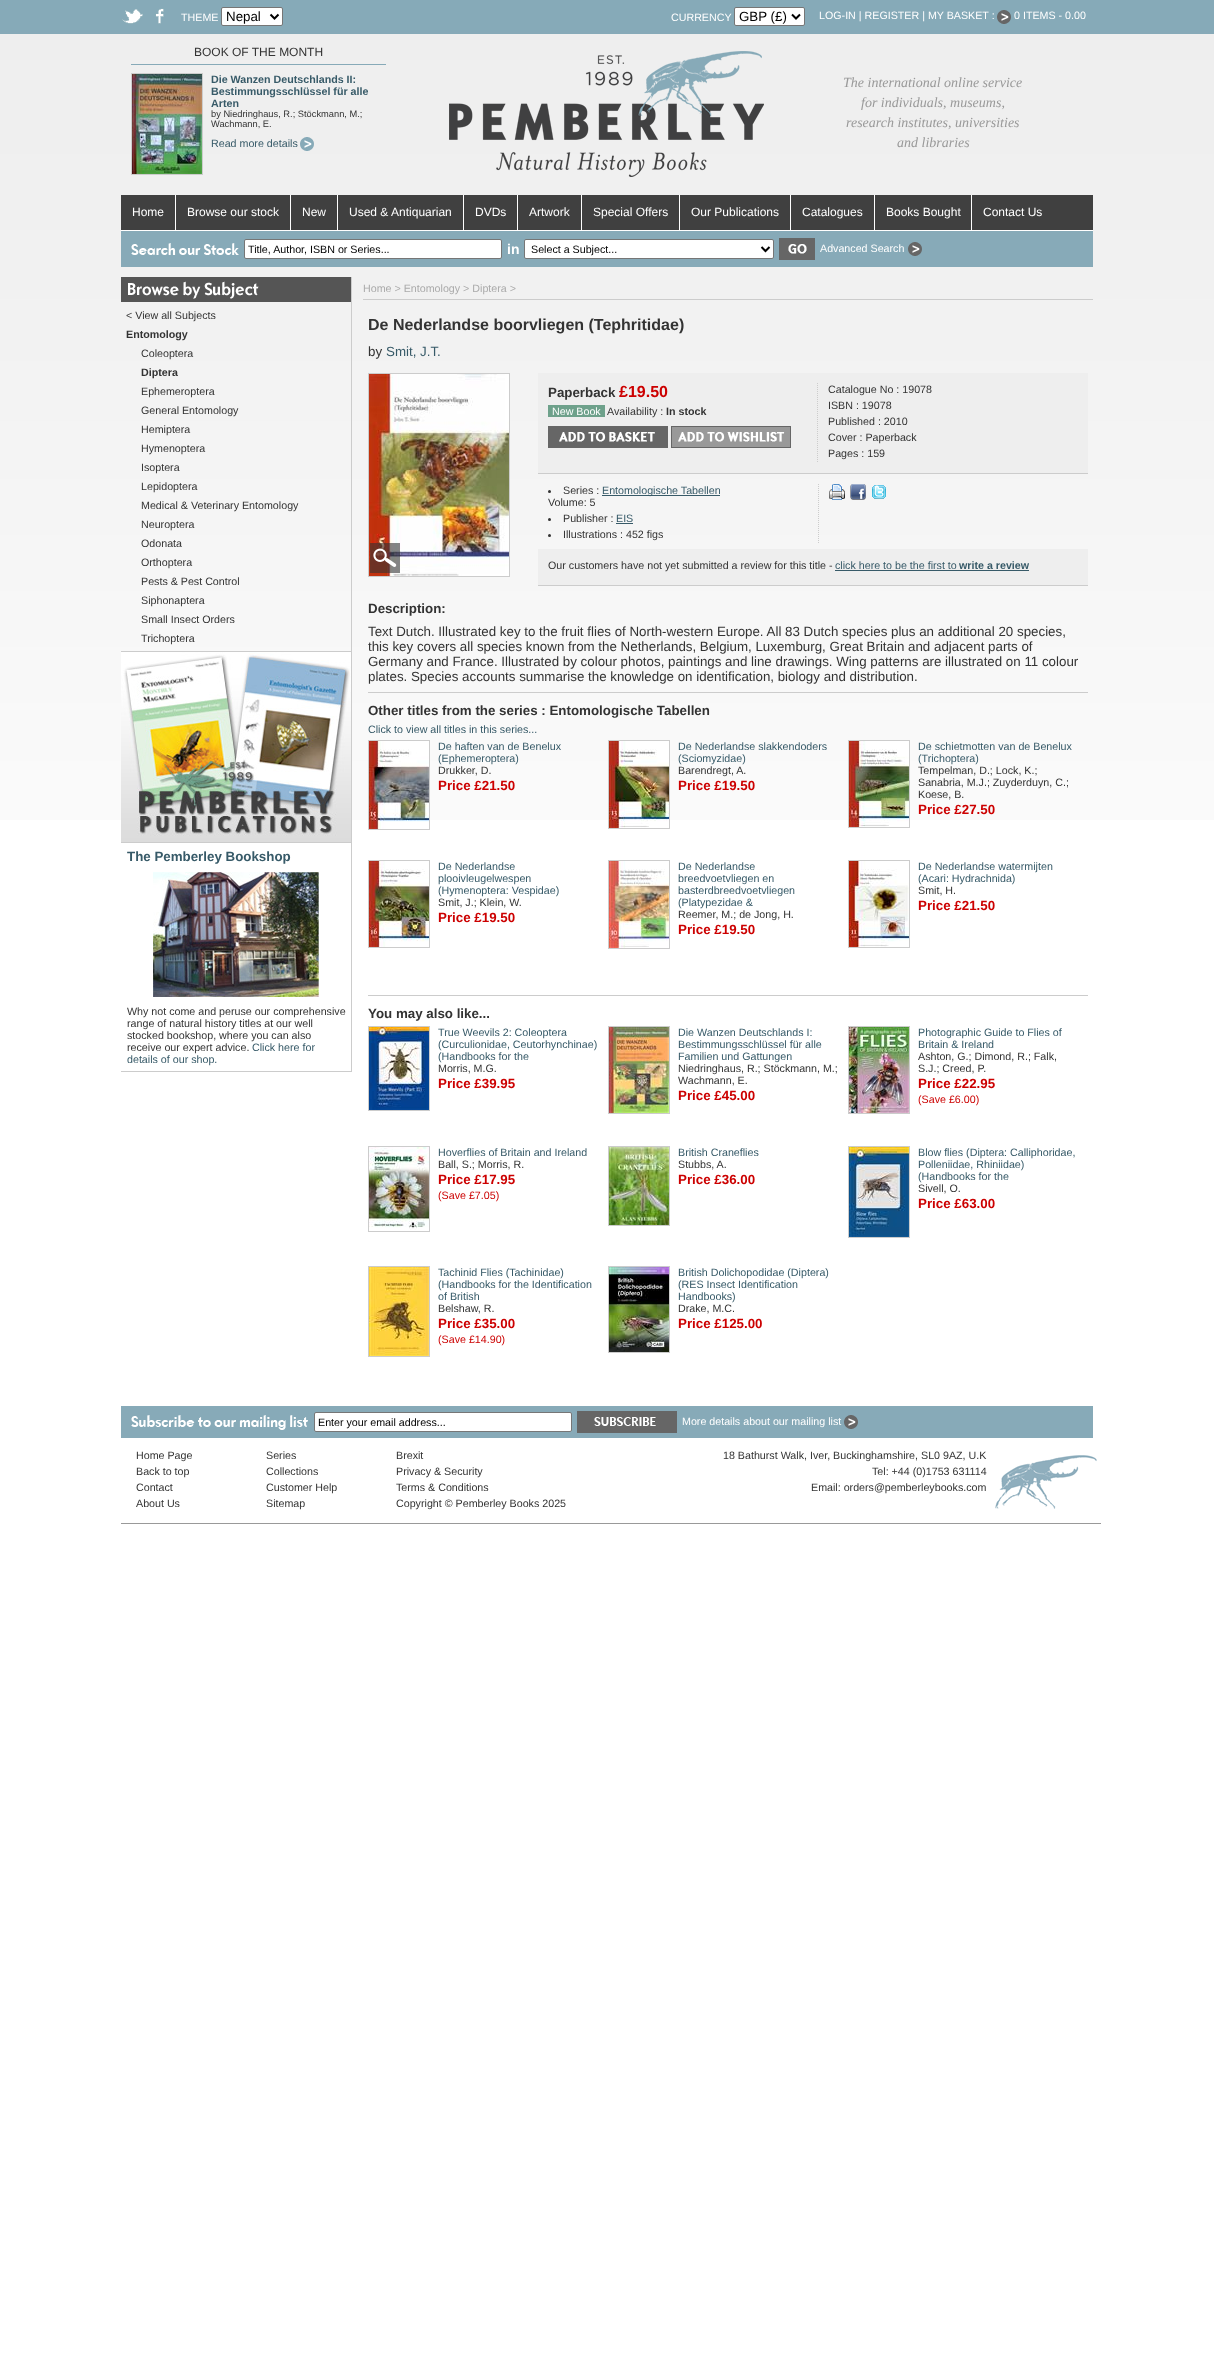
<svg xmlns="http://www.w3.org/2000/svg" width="1214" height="2367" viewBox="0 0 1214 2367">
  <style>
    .t1 { font: 10.7px Liberation Sans; fill: #fff; }
    .t2 { font: 13.33px Liberation Sans; fill: #000; }
    .t3 { font: 12px Liberation Sans; fill: #333; }
    .t4 { font: bold 10.7px Liberation Sans; fill: #375a68; }
    .t5 { font: 9.3px Liberation Sans; fill: #333; }
    .t6 { font: 10.7px Liberation Sans; fill: #375a68; }
    .t7 { font: italic 14px Liberation Serif; fill: #999; }
    .t8 { font: 12px Liberation Sans; fill: #fff; }
    .t9 { font: 10.7px Liberation Sans; fill: #000; }
    .t10 { font: bold 14px Liberation Sans; fill: #fff; }
    .t11 { font: 10.7px Liberation Sans; fill: #333; }
    .t12 { font: bold 10.7px Liberation Sans; fill: #333; }
    .t13 { font: bold 13.33px Liberation Sans; fill: #375a68; }
    .t14 { font: 10.7px Liberation Sans; fill: #aaa; }
    .t15 { font: bold 16px Liberation Sans; fill: #333; }
    .t16 { font: 13.33px Liberation Sans; fill: #333; }
    .t17 { font: 13.33px Liberation Sans; fill: #375a68; }
    .t18 { font: bold 13.33px Liberation Sans; fill: #333; }
    .t19 { font: bold 16px Liberation Sans; fill: #c00; }
    .t20 { font: bold 13.33px Liberation Sans; fill: #c00; }
    .t21 { font: 10.7px Liberation Sans; fill: #c00; }
  </style>
  <rect width="100%" height="100%" fill="#fff"/>
  <image x="0" y="0" width="1214" height="820" href="images/1.png"/>
  <image x="122" y="9" width="21" height="15" href="images/2.png"/>
  <image x="155" y="8" width="9" height="16" href="images/3.png"/>
  <text x="181" y="21" class="t1">THEME</text>
  <rect x="221.5" y="7.5" width="61" height="18" rx="1.5" fill="#fff" stroke="#767676"/>
  <path d="M270.5 14.5L274.5 18.5L278.5 14.5" fill="none" stroke="#000" stroke-width="2"/>
  <text x="226" y="21" class="t2">Nepal</text>
  <text x="671" y="21" class="t1">CURRENCY</text>
  <rect x="734.5" y="7.5" width="70" height="18" rx="1.5" fill="#fff" stroke="#767676"/>
  <path d="M792 14.5L796 18.5L800 14.5" fill="none" stroke="#000" stroke-width="2"/>
  <text x="739" y="21" class="t2">GBP (£)</text>
  <text x="819" y="19" class="t1">LOG-IN | REGISTER | MY BASKET :</text>
  <image x="997" y="10" width="14" height="14" href="images/4.png"/>
  <text x="1014" y="19" class="t1">0 ITEMS - 0.00</text>
  <rect x="131" y="64" width="255" height="1" fill="#87aab8"/>
  <text x="194" y="56" class="t3">BOOK OF THE MONTH</text>
  <rect x="131.5" y="73.5" width="71" height="101" fill="none" stroke="#ccc"/>
  <image x="132" y="74" width="70" height="100" href="images/5.png"/>
  <text x="211" y="83" class="t4">Die Wanzen Deutschlands II:</text>
  <text x="211" y="95" class="t4">Bestimmungsschlüssel für alle</text>
  <text x="211" y="107" class="t4">Arten</text>
  <text x="211" y="117" class="t5">by Niedringhaus, R.; Stöckmann, M.;</text>
  <text x="211" y="127" class="t5">Wachmann, E.</text>
  <text x="211" y="147" class="t6">Read more details</text>
  <image x="300" y="137" width="14" height="14" href="images/6.png"/>
  <image x="449" y="51" width="315" height="126" href="images/7.png"/>
  <text x="843" y="87" class="t7">The international online service</text>
  <text x="861" y="107" class="t7">for individuals, museums,</text>
  <text x="846" y="127" class="t7">research institutes, universities</text>
  <text x="897" y="147" class="t7">and libraries</text>
  <rect x="121" y="195" width="972" height="35" fill="#404040"/>
  <rect x="175" y="195" width="1" height="35" fill="#fff"/>
  <text x="132" y="216" class="t8">Home</text>
  <rect x="290" y="195" width="1" height="35" fill="#fff"/>
  <text x="187" y="216" class="t8">Browse our stock</text>
  <rect x="337" y="195" width="1" height="35" fill="#fff"/>
  <text x="302" y="216" class="t8">New</text>
  <rect x="463" y="195" width="1" height="35" fill="#fff"/>
  <text x="349" y="216" class="t8">Used &amp; Antiquarian</text>
  <rect x="517" y="195" width="1" height="35" fill="#fff"/>
  <text x="475" y="216" class="t8">DVDs</text>
  <rect x="581" y="195" width="1" height="35" fill="#fff"/>
  <text x="529" y="216" class="t8">Artwork</text>
  <rect x="679" y="195" width="1" height="35" fill="#fff"/>
  <text x="593" y="216" class="t8">Special Offers</text>
  <rect x="790" y="195" width="1" height="35" fill="#fff"/>
  <text x="691" y="216" class="t8">Our Publications</text>
  <rect x="874" y="195" width="1" height="35" fill="#fff"/>
  <text x="802" y="216" class="t8">Catalogues</text>
  <rect x="971" y="195" width="1" height="35" fill="#fff"/>
  <text x="886" y="216" class="t8">Books Bought</text>
  <text x="983" y="216" class="t8">Contact Us</text>
  <rect x="121" y="231" width="972" height="36" fill="#87aab8"/>
  <rect x="121" y="230" width="972" height="1" fill="#fff"/>
  <image x="131" y="243" width="108" height="12" href="images/8.png"/>
  <rect x="244.5" y="239.5" width="257" height="19" rx="1.5" fill="#fff" stroke="#767676"/>
  <text x="248" y="253" class="t9">Title, Author, ISBN or Series...</text>
  <text x="507" y="254" class="t10">in</text>
  <rect x="524.5" y="239.5" width="249" height="19" rx="1.5" fill="#fff" stroke="#767676"/>
  <path d="M761.5 247L765.5 251L769.5 247" fill="none" stroke="#000" stroke-width="2"/>
  <text x="531" y="253" class="t9">Select a Subject...</text>
  <image x="779" y="238" width="36" height="22" href="images/9.png"/>
  <text x="820" y="252" class="t1">Advanced Search</text>
  <image x="908" y="242" width="14" height="14" href="images/10.png"/>
  <rect x="351" y="277" width="1" height="795" fill="#ccc"/>
  <image x="121" y="277" width="230" height="25" href="images/11.png"/>
  <text x="126" y="319" class="t11">&lt; View all Subjects</text>
  <text x="126" y="338" class="t12">Entomology</text>
  <text x="141" y="357" class="t11">Coleoptera</text>
  <text x="141" y="376" class="t12">Diptera</text>
  <text x="141" y="395" class="t11">Ephemeroptera</text>
  <text x="141" y="414" class="t11">General Entomology</text>
  <text x="141" y="433" class="t11">Hemiptera</text>
  <text x="141" y="452" class="t11">Hymenoptera</text>
  <text x="141" y="471" class="t11">Isoptera</text>
  <text x="141" y="490" class="t11">Lepidoptera</text>
  <text x="141" y="509" class="t11">Medical &amp; Veterinary Entomology</text>
  <text x="141" y="528" class="t11">Neuroptera</text>
  <text x="141" y="547" class="t11">Odonata</text>
  <text x="141" y="566" class="t11">Orthoptera</text>
  <text x="141" y="585" class="t11">Pests &amp; Pest Control</text>
  <text x="141" y="604" class="t11">Siphonaptera</text>
  <text x="141" y="623" class="t11">Small Insect Orders</text>
  <text x="141" y="642" class="t11">Trichoptera</text>
  <rect x="121" y="651" width="230" height="1" fill="#ccc"/>
  <rect x="121" y="842" width="230" height="1" fill="#ccc"/>
  <image x="121" y="652" width="230" height="190" href="images/12.png"/>
  <rect x="121" y="1071" width="230" height="1" fill="#ccc"/>
  <text x="127" y="861" class="t13">The Pemberley Bookshop</text>
  <image x="153" y="872" width="166" height="125" href="images/13.png"/>
  <text x="127" y="1015" class="t11">Why not come and peruse our comprehensive</text>
  <text x="127" y="1027" class="t11">range of natural history titles at our well</text>
  <text x="127" y="1039" class="t11">stocked bookshop, where you can also</text>
  <text x="127" y="1051" class="t11">receive our expert advice.</text>
  <text x="252" y="1051" class="t6">Click here for</text>
  <text x="127" y="1063" class="t6">details of our shop.</text>
  <rect x="363" y="299" width="730" height="1" fill="#ccc"/>
  <text x="363" y="292" class="t14">Home &gt; Entomology &gt; Diptera &gt;</text>
  <text x="368" y="330" class="t15">De Nederlandse boorvliegen (Tephritidae)</text>
  <text x="368" y="356" class="t16">by</text>
  <text x="386" y="356" class="t17">Smit, J.T.</text>
  <rect x="368.5" y="373.5" width="141" height="203" fill="none" stroke="#ccc"/>
  <image x="369" y="374" width="140" height="202" href="images/14.png"/>
  <image x="370" y="543" width="30" height="30" href="images/15.png"/>
  <rect x="538" y="373" width="550" height="100" fill="#eee"/>
  <rect x="538" y="473" width="550" height="1" fill="#ccc"/>
  <text x="548" y="397" class="t18">Paperback</text>
  <text x="619" y="397" class="t19">£19.50</text>
  <rect x="548" y="405" width="57" height="12" fill="#6ea18b"/>
  <text x="552" y="415" class="t1">New Book</text>
  <text x="607" y="415" class="t11">Availability :</text>
  <text x="666" y="415" class="t12">In stock</text>
  <image x="548" y="426" width="120" height="22" href="images/16.png"/>
  <image x="671" y="426" width="120" height="22" href="images/17.png"/>
  <path d="M817.5 383V463" fill="none" stroke="#ccc" stroke-dasharray="1 1"/>
  <text x="828" y="393" class="t11">Catalogue No : 19078</text>
  <text x="828" y="409" class="t11">ISBN : 19078</text>
  <text x="828" y="425" class="t11">Published : 2010</text>
  <text x="828" y="441" class="t11">Cover : Paperback</text>
  <text x="828" y="457" class="t11">Pages : 159</text>
  <path d="M818.5 484V544" fill="none" stroke="#ccc" stroke-dasharray="1 1"/>
  <circle cx="549.5" cy="491.5" r="1.5" fill="#333"/>
  <text x="563" y="494" class="t11">Series :</text>
  <rect x="602" y="495" width="118" height="1" fill="#375a68"/>
  <text x="602" y="494" class="t6">Entomologische Tabellen</text>
  <text x="548" y="506" class="t11">Volume: 5</text>
  <circle cx="549.5" cy="519.5" r="1.5" fill="#333"/>
  <text x="563" y="522" class="t11">Publisher :</text>
  <text x="616" y="522" class="t6">EIS</text>
  <rect x="616" y="523" width="17" height="1" fill="#375a68"/>
  <circle cx="549.5" cy="535.5" r="1.5" fill="#333"/>
  <text x="563" y="538" class="t11">Illustrations : 452 figs</text>
  <image x="829" y="484" width="16" height="16" href="images/18.png"/>
  <image x="850" y="484" width="16" height="16" href="images/19.png"/>
  <image x="872" y="485" width="14" height="14" href="images/20.png"/>
  <rect x="538" y="549" width="550" height="36" fill="#eee"/>
  <rect x="538" y="585" width="550" height="1" fill="#ccc"/>
  <text x="548" y="569" class="t11">Our customers have not yet submitted a review for this title -</text>
  <text x="835" y="569" class="t6">click here to be the first to</text>
  <rect x="835" y="570" width="194" height="1" fill="#375a68"/>
  <text x="959" y="569" class="t4">write a review</text>
  <text x="368" y="613" class="t18">Description:</text>
  <text x="368" y="636" class="t16">Text Dutch. Illustrated key to the fruit flies of North-western Europe. All 83 Dutch species plus an additional 20 species,</text>
  <text x="368" y="651" class="t16">this key covers all species known from the Netherlands, Belgium, Luxemburg, Great Britain and adjacent parts of</text>
  <text x="368" y="666" class="t16">Germany and France. Illustrated by colour photos, paintings and line drawings. Wing patterns are illustrated on 11 colour</text>
  <text x="368" y="681" class="t16">plates. Species accounts summarise the knowledge on identification, biology and distribution.</text>
  <rect x="368" y="692" width="720" height="1" fill="#ccc"/>
  <text x="368" y="715" class="t18">Other titles from the series : Entomologische Tabellen</text>
  <text x="368" y="733" class="t6">Click to view all titles in this series...</text>
  <rect x="368.5" y="740.5" width="61" height="89" fill="none" stroke="#ccc"/>
  <image x="369" y="741" width="60" height="88" href="images/21.png"/>
  <text x="438" y="750" class="t6">De haften van de Benelux</text>
  <text x="438" y="762" class="t6">(Ephemeroptera)</text>
  <text x="438" y="774" class="t11">Drukker, D.</text>
  <text x="438" y="790" class="t20">Price £21.50</text>
  <rect x="608.5" y="740.5" width="61" height="88" fill="none" stroke="#ccc"/>
  <image x="609" y="741" width="60" height="87" href="images/22.png"/>
  <text x="678" y="750" class="t6">De Nederlandse slakkendoders</text>
  <text x="678" y="762" class="t6">(Sciomyzidae)</text>
  <text x="678" y="774" class="t11">Barendregt, A.</text>
  <text x="678" y="790" class="t20">Price £19.50</text>
  <rect x="848.5" y="740.5" width="61" height="87" fill="none" stroke="#ccc"/>
  <image x="849" y="741" width="60" height="86" href="images/23.png"/>
  <text x="918" y="750" class="t6">De schietmotten van de Benelux</text>
  <text x="918" y="762" class="t6">(Trichoptera)</text>
  <text x="918" y="774" class="t11">Tempelman, D.; Lock, K.;</text>
  <text x="918" y="786" class="t11">Sanabria, M.J.; Zuyderduyn, C.;</text>
  <text x="918" y="798" class="t11">Koese, B.</text>
  <text x="918" y="814" class="t20">Price £27.50</text>
  <rect x="368.5" y="860.5" width="61" height="87" fill="none" stroke="#ccc"/>
  <image x="369" y="861" width="60" height="86" href="images/24.png"/>
  <text x="438" y="870" class="t6">De Nederlandse</text>
  <text x="438" y="882" class="t6">plooivleugelwespen</text>
  <text x="438" y="894" class="t6">(Hymenoptera: Vespidae)</text>
  <text x="438" y="906" class="t11">Smit, J.; Klein, W.</text>
  <text x="438" y="922" class="t20">Price £19.50</text>
  <rect x="608.5" y="860.5" width="61" height="88" fill="none" stroke="#ccc"/>
  <image x="609" y="861" width="60" height="87" href="images/25.png"/>
  <text x="678" y="870" class="t6">De Nederlandse</text>
  <text x="678" y="882" class="t6">breedvoetvliegen en</text>
  <text x="678" y="894" class="t6">basterdbreedvoetvliegen</text>
  <text x="678" y="906" class="t6">(Platypezidae &amp;</text>
  <text x="678" y="918" class="t11">Reemer, M.; de Jong, H.</text>
  <text x="678" y="934" class="t20">Price £19.50</text>
  <rect x="848.5" y="860.5" width="61" height="87" fill="none" stroke="#ccc"/>
  <image x="849" y="861" width="60" height="86" href="images/26.png"/>
  <text x="918" y="870" class="t6">De Nederlandse watermijten</text>
  <text x="918" y="882" class="t6">(Acari: Hydrachnida)</text>
  <text x="918" y="894" class="t11">Smit, H.</text>
  <text x="918" y="910" class="t20">Price £21.50</text>
  <rect x="368" y="995" width="720" height="1" fill="#ccc"/>
  <text x="368" y="1018" class="t18">You may also like...</text>
  <rect x="368.5" y="1026.5" width="61" height="84" fill="none" stroke="#ccc"/>
  <image x="369" y="1027" width="60" height="83" href="images/27.png"/>
  <text x="438" y="1036" class="t6">True Weevils 2: Coleoptera</text>
  <text x="438" y="1048" class="t6">(Curculionidae, Ceutorhynchinae)</text>
  <text x="438" y="1060" class="t6">(Handbooks for the</text>
  <text x="438" y="1072" class="t11">Morris, M.G.</text>
  <text x="438" y="1088" class="t20">Price £39.95</text>
  <rect x="608.5" y="1026.5" width="61" height="87" fill="none" stroke="#ccc"/>
  <image x="609" y="1027" width="60" height="86" href="images/28.png"/>
  <text x="678" y="1036" class="t6">Die Wanzen Deutschlands I:</text>
  <text x="678" y="1048" class="t6">Bestimmungsschlüssel für alle</text>
  <text x="678" y="1060" class="t6">Familien und Gattungen</text>
  <text x="678" y="1072" class="t11">Niedringhaus, R.; Stöckmann, M.;</text>
  <text x="678" y="1084" class="t11">Wachmann, E.</text>
  <text x="678" y="1100" class="t20">Price £45.00</text>
  <rect x="848.5" y="1026.5" width="61" height="87" fill="none" stroke="#ccc"/>
  <image x="849" y="1027" width="60" height="86" href="images/29.png"/>
  <text x="918" y="1036" class="t6">Photographic Guide to Flies of</text>
  <text x="918" y="1048" class="t6">Britain &amp; Ireland</text>
  <text x="918" y="1060" class="t11">Ashton, G.; Dimond, R.; Falk,</text>
  <text x="918" y="1072" class="t11">S.J.; Creed, P.</text>
  <text x="918" y="1088" class="t20">Price £22.95</text>
  <text x="918" y="1103" class="t21">(Save £6.00)</text>
  <rect x="368.5" y="1146.5" width="61" height="85" fill="none" stroke="#ccc"/>
  <image x="369" y="1147" width="60" height="83" href="images/30.png"/>
  <text x="438" y="1156" class="t6">Hoverflies of Britain and Ireland</text>
  <text x="438" y="1168" class="t11">Ball, S.; Morris, R.</text>
  <text x="438" y="1184" class="t20">Price £17.95</text>
  <text x="438" y="1199" class="t21">(Save £7.05)</text>
  <rect x="608.5" y="1146.5" width="61" height="79" fill="none" stroke="#ccc"/>
  <image x="609" y="1147" width="60" height="78" href="images/31.png"/>
  <text x="678" y="1156" class="t6">British Craneflies</text>
  <text x="678" y="1168" class="t11">Stubbs, A.</text>
  <text x="678" y="1184" class="t20">Price £36.00</text>
  <rect x="848.5" y="1146.5" width="61" height="91" fill="none" stroke="#ccc"/>
  <image x="849" y="1147" width="60" height="90" href="images/32.png"/>
  <text x="918" y="1156" class="t6">Blow flies (Diptera: Calliphoridae,</text>
  <text x="918" y="1168" class="t6">Polleniidae, Rhiniidae)</text>
  <text x="918" y="1180" class="t6">(Handbooks for the</text>
  <text x="918" y="1192" class="t11">Sivell, O.</text>
  <text x="918" y="1208" class="t20">Price £63.00</text>
  <rect x="368.5" y="1266.5" width="61" height="90" fill="none" stroke="#ccc"/>
  <image x="369" y="1267" width="60" height="89" href="images/33.png"/>
  <text x="438" y="1276" class="t6">Tachinid Flies (Tachinidae)</text>
  <text x="438" y="1288" class="t6">(Handbooks for the Identification</text>
  <text x="438" y="1300" class="t6">of British</text>
  <text x="438" y="1312" class="t11">Belshaw, R.</text>
  <text x="438" y="1328" class="t20">Price £35.00</text>
  <text x="438" y="1343" class="t21">(Save £14.90)</text>
  <rect x="608.5" y="1266.5" width="61" height="86" fill="none" stroke="#ccc"/>
  <image x="609" y="1267" width="60" height="85" href="images/34.png"/>
  <text x="678" y="1276" class="t6">British Dolichopodidae (Diptera)</text>
  <text x="678" y="1288" class="t6">(RES Insect Identification</text>
  <text x="678" y="1300" class="t6">Handbooks)</text>
  <text x="678" y="1312" class="t11">Drake, M.C.</text>
  <text x="678" y="1328" class="t20">Price £125.00</text>
  <rect x="121" y="1406" width="972" height="32" fill="#87aab8"/>
  <image x="131" y="1415" width="177" height="15" href="images/35.png"/>
  <rect x="314.5" y="1412.5" width="257" height="19" rx="1.5" fill="#fff" stroke="#767676"/>
  <text x="318" y="1426" class="t9">Enter your email address...</text>
  <image x="577" y="1411" width="100" height="22" href="images/36.png"/>
  <text x="682" y="1425" class="t1">More details about our mailing list</text>
  <image x="844" y="1415" width="14" height="14" href="images/10.png"/>
  <image x="995" y="1455" width="102" height="54" href="images/37.png"/>
  <rect x="121" y="1523" width="980" height="1" fill="#999"/>
  <text x="136" y="1459" class="t11">Home Page</text>
  <text x="136" y="1475" class="t11">Back to top</text>
  <text x="136" y="1491" class="t11">Contact</text>
  <text x="136" y="1507" class="t11">About Us</text>
  <text x="266" y="1459" class="t11">Series</text>
  <text x="266" y="1475" class="t11">Collections</text>
  <text x="266" y="1491" class="t11">Customer Help</text>
  <text x="266" y="1507" class="t11">Sitemap</text>
  <text x="396" y="1459" class="t11">Brexit</text>
  <text x="396" y="1475" class="t11">Privacy &amp; Security</text>
  <text x="396" y="1491" class="t11">Terms &amp; Conditions</text>
  <text x="396" y="1507" class="t11">Copyright © Pemberley Books 2025</text>
  <text x="723" y="1459" class="t11">18 Bathurst Walk, Iver, Buckinghamshire, SL0 9AZ, U.K</text>
  <text x="872" y="1475" class="t11">Tel: +44 (0)1753 631114</text>
  <text x="811" y="1491" class="t11">Email: orders@pemberleybooks.com</text>
</svg>
